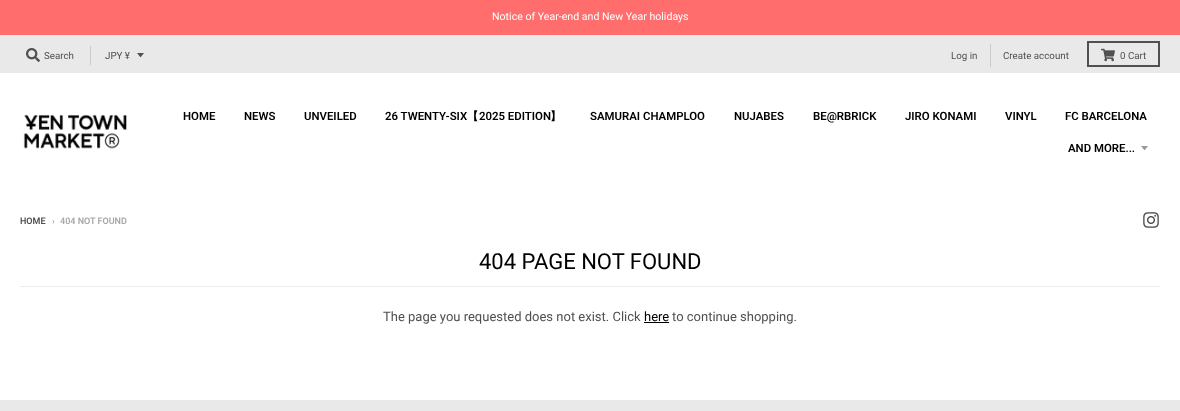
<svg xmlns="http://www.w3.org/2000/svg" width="1180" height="411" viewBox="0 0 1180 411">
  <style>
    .t1 { font: 10.6px Roboto; fill: #fff; }
    .t2 { font: 9.75px Roboto; fill: #4f4f4f; }
    .t3 { font: 600 11.4px Roboto; fill: #000; }
    .t4 { font: bold 11.4px WenQuanYi Zen Hei; fill: #000; }
    .t5 { font: 600 9px Roboto; fill: #4f4f4f; }
    .t6 { font: 600 9px Roboto; fill: #a7a7a7; }
    .t7 { font: 22px Roboto; fill: #000; }
    .t8 { font: 13px Roboto; fill: #4f4f4f; }
    .t9 { font: 13px Roboto; fill: #000; }
  </style>
  <rect width="100%" height="100%" fill="#fff"/>
  <rect x="0" y="0" width="1180" height="35" fill="#ff6d6d"/>
  <text x="492" y="20" class="t1">Notice of Year-end and New Year holidays</text>
  <rect x="0" y="35" width="1180" height="38" fill="#e9e9e9"/>
  <image x="26" y="48" width="14" height="14" href="images/1.png"/>
  <text x="44" y="59" class="t2">Search</text>
  <rect x="90" y="46" width="1" height="19" fill="#cacaca"/>
  <path d="M137 53C141.5 58.5 139.5 58.5 144 53Z" fill="#505050"/>
  <text x="105" y="59" class="t2">JPY ¥</text>
  <rect x="990" y="44" width="1" height="23" fill="#cacaca"/>
  <text x="951" y="59" class="t2">Log in</text>
  <text x="1003" y="59" class="t2">Create account</text>
  <rect x="1088" y="42" width="71" height="24" fill="none" stroke="#505050" stroke-width="2"/>
  <image x="1101" y="48" width="14" height="14" href="images/2.png"/>
  <text x="1120" y="59" class="t2">0 Cart</text>
  <image x="23" y="114" width="104" height="35" href="images/3.png"/>
  <text x="183" y="120" class="t3">HOME</text>
  <text x="244" y="120" class="t3">NEWS</text>
  <text x="304" y="120" class="t3">UNVEILED</text>
  <text x="385" y="120" class="t3">26 TWENTY-SIX</text>
  <text x="467" y="120" class="t4">【</text>
  <text x="479" y="120" class="t3">2025 EDITION</text>
  <text x="550" y="120" class="t4">】</text>
  <text x="590" y="120" class="t3">SAMURAI CHAMPLOO</text>
  <text x="734" y="120" class="t3">NUJABES</text>
  <text x="813" y="120" class="t3">BE@RBRICK</text>
  <text x="905" y="120" class="t3">JIRO KONAMI</text>
  <text x="1005" y="120" class="t3">VINYL</text>
  <text x="1065" y="120" class="t3">FC BARCELONA</text>
  <text x="1068" y="152" class="t3">AND MORE...</text>
  <path d="M1141 146C1145.5 151.5 1143.5 151.5 1148 146Z" fill="#999"/>
  <text x="20" y="224" class="t5">HOME</text>
  <text x="52" y="224" class="t6">›</text>
  <text x="60" y="224" class="t6">404 NOT FOUND</text>
  <image x="1143" y="212" width="16" height="16" href="images/4.png"/>
  <rect x="20" y="286" width="1140" height="1" fill="#ededed"/>
  <text x="479" y="269" class="t7">404 PAGE NOT FOUND</text>
  <text x="383" y="321" class="t8">The page you requested does not exist. Click</text>
  <text x="644" y="321" class="t9">here</text>
  <rect x="644" y="322" width="25" height="1" fill="#000"/>
  <text x="672" y="321" class="t8">to continue shopping.</text>
  <rect x="0" y="400" width="1180" height="11" fill="#e9e9e9"/>
</svg>
